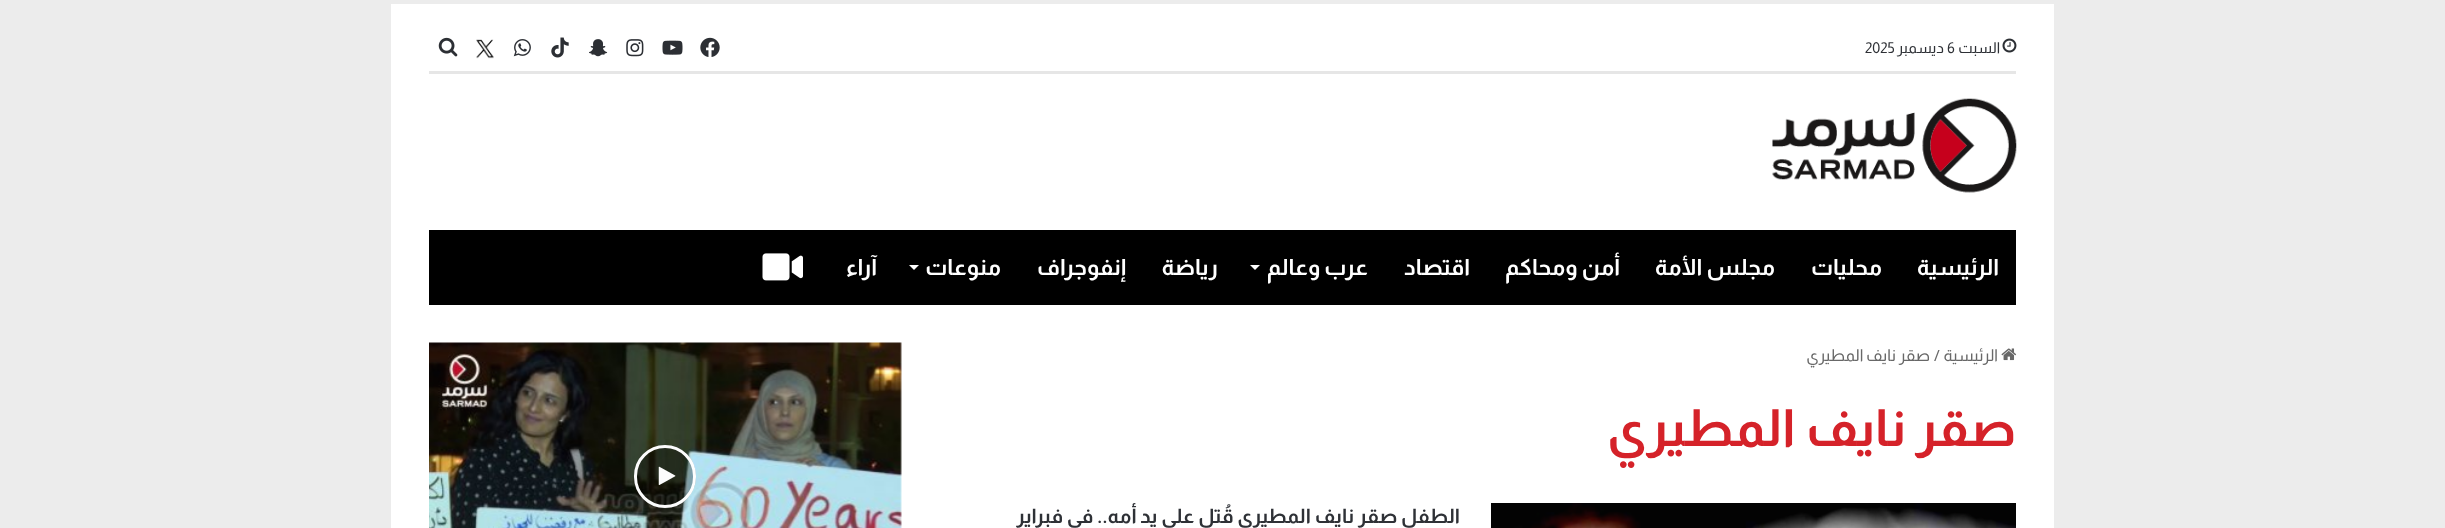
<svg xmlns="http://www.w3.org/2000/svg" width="2445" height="528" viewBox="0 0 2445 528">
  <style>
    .t1 { font: 15px Almarai; direction: rtl; fill: #2e3136; }
    .t2 { font: 15px Almarai; fill: #2e3136; }
    .t3 { font: bold 22.5px Almarai; direction: rtl; fill: #fff; }
    .t4 { font: 16.25px Almarai; direction: rtl; fill: #686868; }
    .t5 { font: 16.25px Almarai; fill: #686868; }
    .t6 { font: bold 51.25px Almarai; direction: rtl; fill: #d52229; }
    .t7 { font: bold 20px Almarai; direction: rtl; fill: #2e3136; }
  </style>
  <rect width="100%" height="100%" fill="#ececec"/>
  <rect x="391" y="4" width="1663" height="524" fill="#fff"/>
  <rect x="429" y="71" width="1587" height="3" fill="#e6e6e6"/>
  <image x="2002" y="38" width="15" height="15" href="images/1.png"/>
  <text x="2000" y="53" class="t1">السبت</text>
  <text x="1947" y="53" class="t2">6</text>
  <text x="1944" y="53" class="t1">ديسمبر</text>
  <text x="1865" y="53" class="t2">2025</text>
  <image x="700" y="37" width="20" height="20" href="images/2.png"/>
  <image x="662" y="40" width="21" height="15" href="images/3.png"/>
  <image x="626" y="39" width="18" height="18" href="images/4.png"/>
  <image x="589" y="39" width="19" height="18" href="images/5.png"/>
  <image x="551" y="37" width="18" height="21" href="images/6.png"/>
  <image x="513" y="39" width="18" height="18" href="images/7.png"/>
  <image x="476" y="39" width="18" height="20" href="images/8.png"/>
  <image x="438" y="37" width="20" height="20" href="images/9.png"/>
  <image x="1772" y="98" width="245" height="95" href="images/10.png"/>
  <rect x="429" y="230" width="1587" height="75" fill="#000"/>
  <text x="1999" y="275" class="t3">الرئيسية</text>
  <text x="1882" y="275" class="t3">محليات</text>
  <text x="1775" y="275" class="t3">مجلس الأمة</text>
  <text x="1620" y="275" class="t3">أمن ومحاكم</text>
  <text x="1470" y="275" class="t3">اقتصاد</text>
  <text x="1368" y="275" class="t3">عرب وعالم</text>
  <path d="M1250 265H1260L1255 270Z" fill="#fff"/>
  <text x="1218" y="275" class="t3">رياضة</text>
  <text x="1126" y="275" class="t3">إنفوجراف</text>
  <text x="1001" y="275" class="t3">منوعات</text>
  <path d="M909 265H919L914 270Z" fill="#fff"/>
  <text x="877" y="275" class="t3">آراء</text>
  <image x="762" y="253" width="41" height="28" href="images/11.png"/>
  <image x="2001" y="348" width="16" height="13" href="images/12.png"/>
  <text x="1998" y="361" class="t4">الرئيسية</text>
  <text x="1934" y="361" class="t5">/</text>
  <text x="1930" y="361" class="t4">صقر نايف المطيري</text>
  <text x="2016" y="446" class="t6">صقر نايف المطيري</text>
  <image x="1491" y="503" width="525" height="25" href="images/13.png"/>
  <text x="1460" y="523" class="t7">الطفل صقر</text>
  <text x="1354" y="523" class="t7">نايف المطيري قُتل على يد أمه.. في فبراير</text>
  <image x="429" y="342" width="473" height="186" href="images/14.png"/>
  <rect x="634" y="445" width="62" height="63" rx="31" fill="#0000004d"/>
  <rect x="635.5" y="446.5" width="59" height="60" rx="29.5" fill="none" stroke="#fffffffc" stroke-width="3"/>
  <image x="658" y="466" width="18" height="19" href="images/15.png"/>
</svg>
